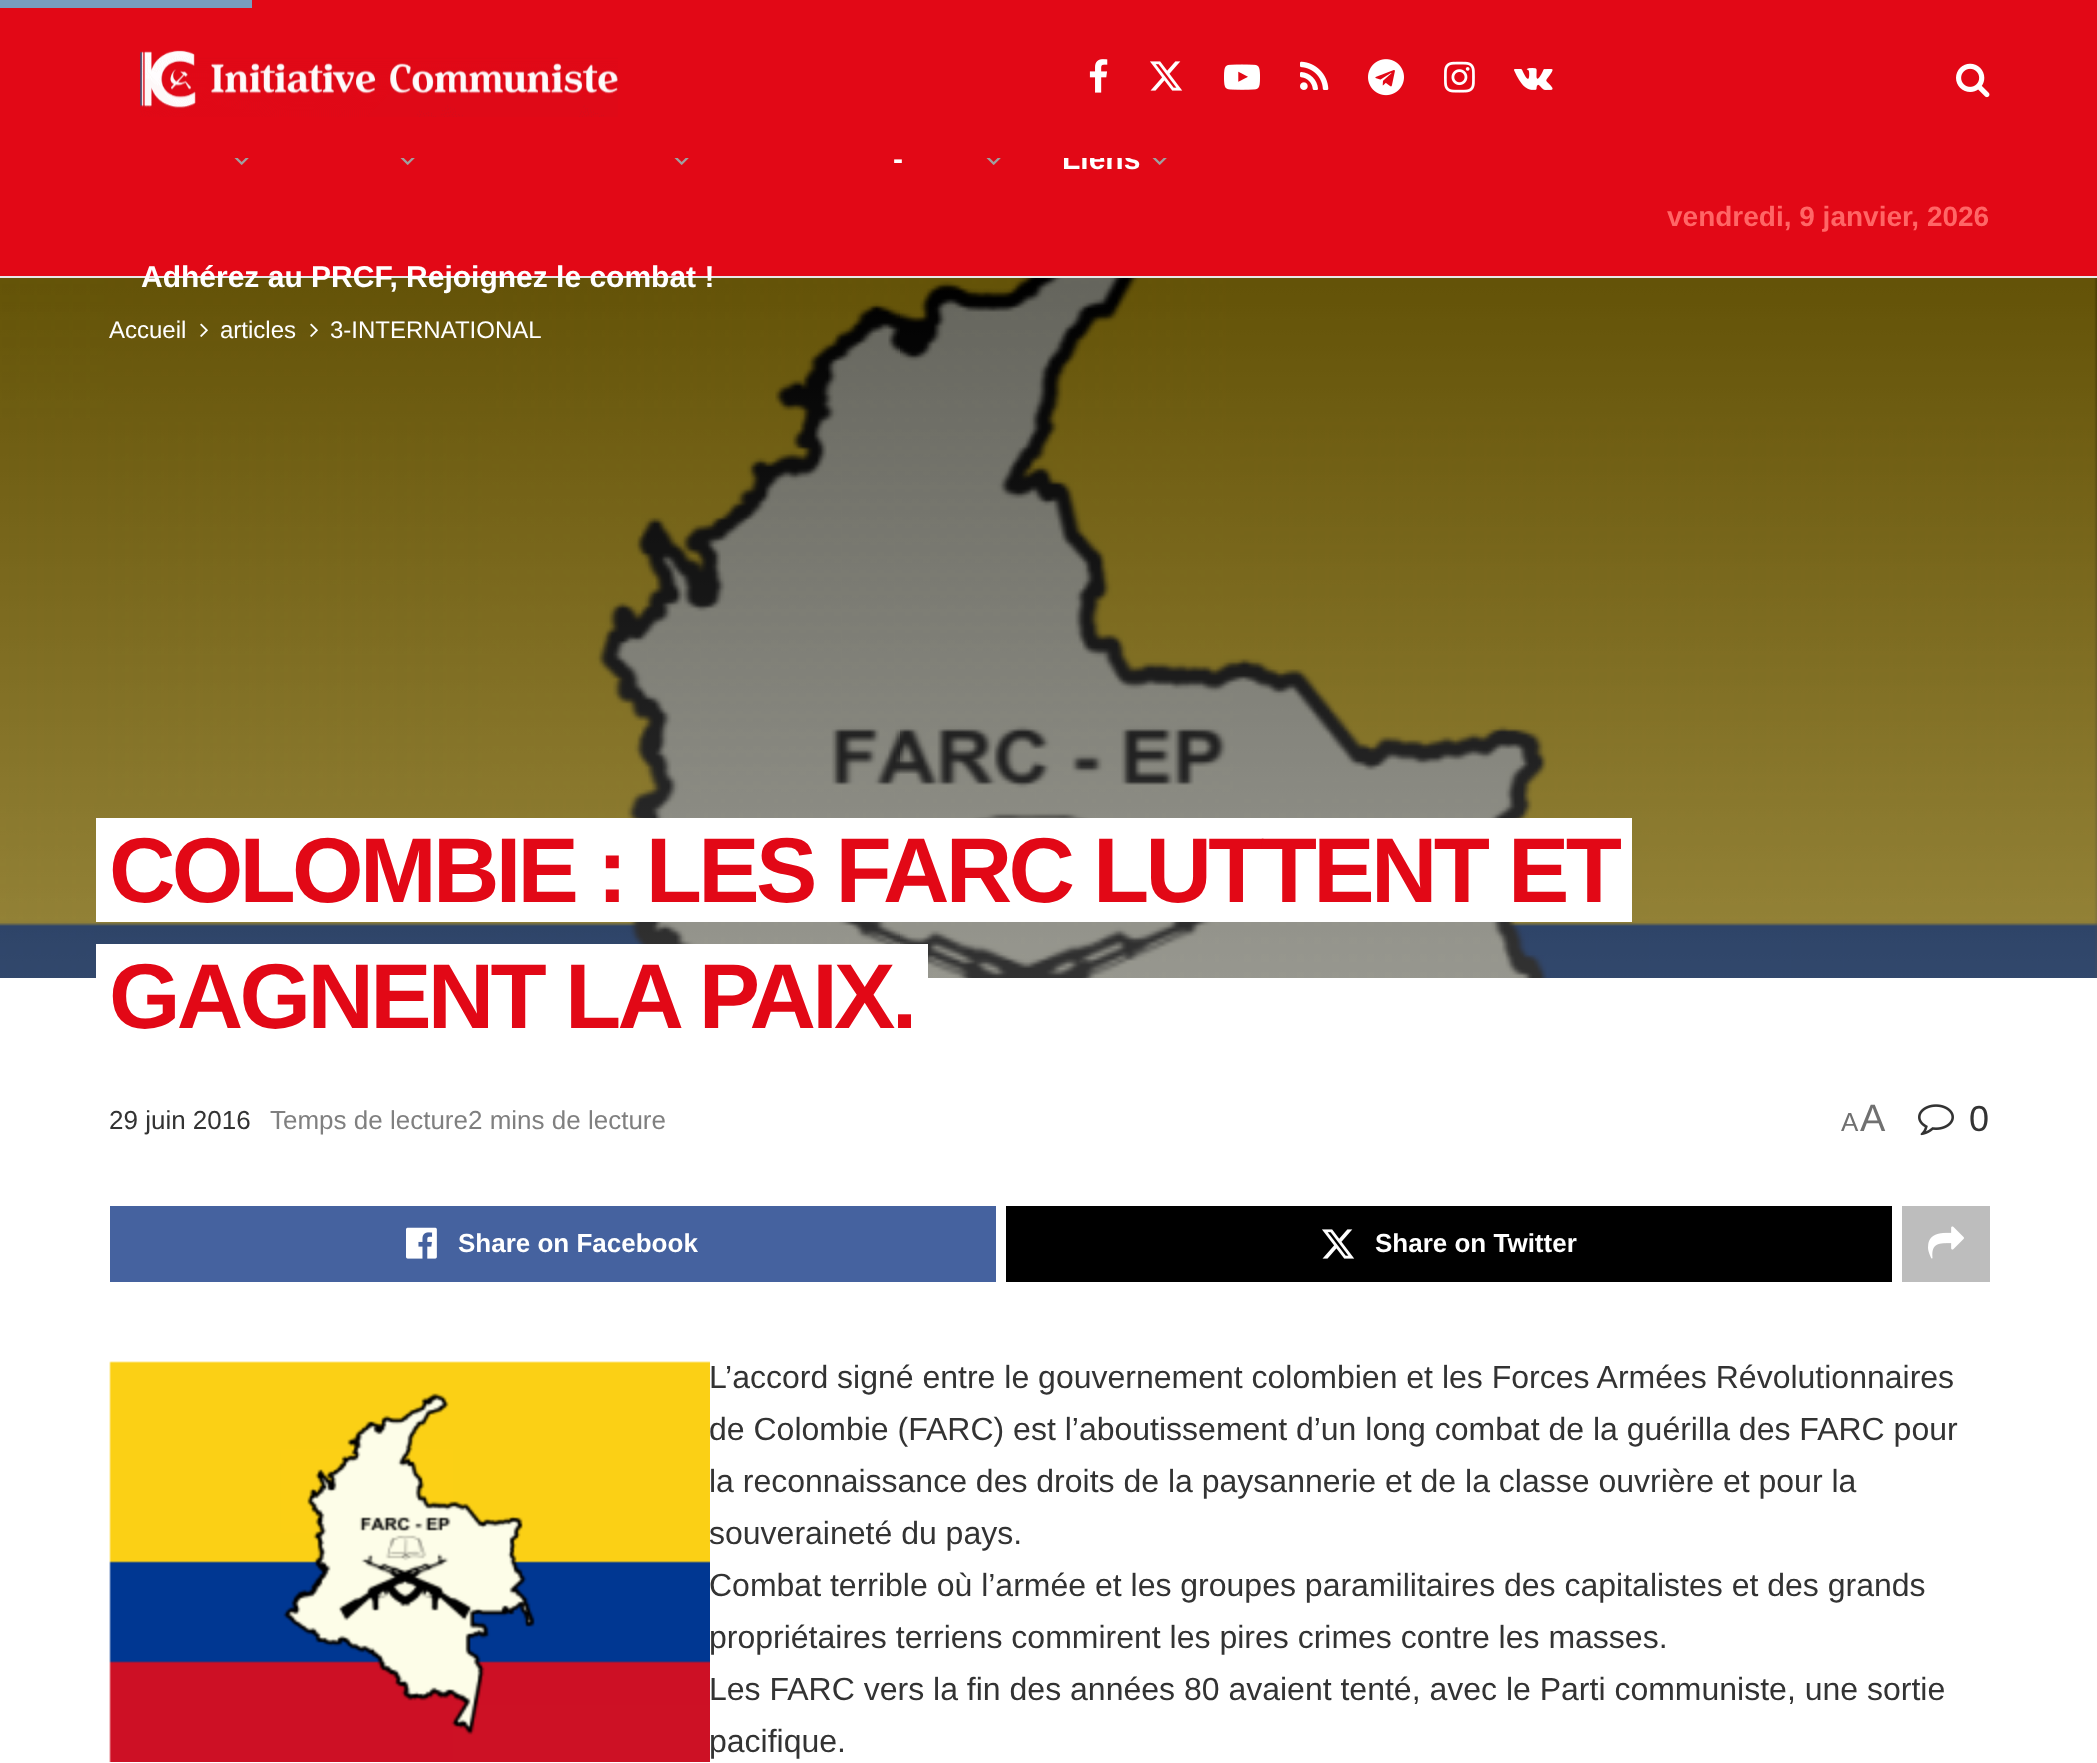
<svg xmlns="http://www.w3.org/2000/svg" width="2097" height="1763" viewBox="0 0 2097 1763">
  <style>
    .t1 { font: bold 30px Liberation Sans; fill: #fff; }
    .t2 { font: bold 28px Liberation Sans; fill: #f66; }
    .t3 { font: 24px Liberation Sans; fill: #fff; }
    .t4 { font: bold 92px Liberation Sans; letter-spacing: -3.7px; fill: #e20816; }
    .t5 { font: 26px Liberation Sans; fill: #333; }
    .t6 { font: 26px Liberation Sans; fill: #808080; }
    .t7 { font: 26px Liberation Sans; fill: #707070; }
    .t8 { font: 38px Liberation Sans; fill: #707070; }
    .t9 { font: 36px Liberation Sans; fill: #333; }
    .t10 { font: bold 26px Liberation Sans; fill: #fff; }
    .t11 { font: 32px Liberation Sans; fill: #333; }
  </style>
  <defs>
    <linearGradient id="g1" gradientUnits="userSpaceOnUse" x1="1049" y1="278" x2="1049" y2="978"><stop offset="0" stop-color="#000"/><stop offset="1" stop-color="#545454"/></linearGradient>
  </defs>
  <rect width="100%" height="100%" fill="#fff"/>
  <rect x="0" y="158" width="2097" height="118" fill="#e20816"/>
  <text x="1062" y="169" class="t1">Liens</text>
  <rect x="0" y="0" width="2097" height="158" fill="#e20816"/>
  <rect x="0" y="0" width="252" height="8" fill="#789dbf"/>
  <image x="140" y="50" width="478" height="67" href="images/1.png"/>
  <image x="1089" y="59" width="19" height="34" href="images/2.png"/>
  <image x="1150" y="61" width="33" height="30" href="images/3.png"/>
  <image x="1224" y="64" width="36" height="26" href="images/4.png"/>
  <image x="1300" y="61" width="29" height="29" href="images/5.png"/>
  <image x="1368" y="59" width="36" height="37" href="images/6.png"/>
  <image x="1444" y="61" width="31" height="32" href="images/7.png"/>
  <image x="1514" y="68" width="39" height="22" href="images/8.png"/>
  <image x="1956" y="63" width="34" height="35" href="images/9.png"/>
  <rect x="0" y="276" width="2097" height="2" fill="#e8e8e8"/>
  <image x="234" y="158" width="15" height="7" href="images/10.png"/>
  <image x="400" y="158" width="15" height="7" href="images/10.png"/>
  <image x="674" y="158" width="15" height="7" href="images/10.png"/>
  <text x="893" y="169" class="t1">-</text>
  <image x="986" y="158" width="15" height="7" href="images/10.png"/>
  <image x="1152" y="158" width="15" height="7" href="images/10.png"/>
  <rect x="0" y="278" width="2097" height="700" fill="url(#g1)"/>
  <image x="0" y="278" width="2097" height="700" href="images/11.png"/>
  <text x="141" y="287" class="t1">Adhérez au PRCF, Rejoignez le combat !</text>
  <text x="1667" y="226" class="t2">vendredi, 9 janvier, 2026</text>
  <text x="109" y="338" class="t3">Accueil</text>
  <image x="200" y="323" width="8" height="14" href="images/12.png"/>
  <text x="220" y="338" class="t3">articles</text>
  <image x="310" y="323" width="8" height="14" href="images/13.png"/>
  <text x="330" y="338" class="t3">3-INTERNATIONAL</text>
  <rect x="110" y="818" width="1522" height="104" fill="#fff"/>
  <text x="109" y="902" class="t4">COLOMBIE : LES FARC LUTTENT ET</text>
  <rect x="96" y="818" width="14" height="104" fill="#fff"/>
  <rect x="110" y="944" width="818" height="34" fill="#fff"/>
  <text x="109" y="1028" class="t4">GAGNENT LA PAIX.</text>
  <rect x="96" y="944" width="14" height="34" fill="#fff"/>
  <text x="109" y="1129" class="t5">29 juin 2016</text>
  <text x="270" y="1129" class="t6">Temps de lecture2 mins de lecture</text>
  <text x="1841" y="1131" class="t7">A</text>
  <text x="1860" y="1131" class="t8">A</text>
  <image x="1918" y="1104" width="36" height="32" href="images/14.png"/>
  <text x="1969" y="1131" class="t9">0</text>
  <rect x="110" y="1206" width="886" height="76" fill="#45629f"/>
  <image x="406" y="1227" width="31" height="32" href="images/15.png"/>
  <text x="458" y="1252" class="t10">Share on Facebook</text>
  <rect x="1006" y="1206" width="886" height="76" fill="#000"/>
  <image x="1322" y="1229" width="33" height="30" href="images/16.png"/>
  <text x="1375" y="1252" class="t10">Share on Twitter</text>
  <rect x="1902" y="1206" width="88" height="76" fill="#bdbdbd"/>
  <image x="1928" y="1226" width="36" height="33" href="images/17.png"/>
  <image x="109" y="1361" width="601" height="401" href="images/18.png"/>
  <text x="709" y="1388" class="t11">L’accord signé entre le gouvernement colombien et les Forces Armées Révolutionnaires</text>
  <text x="709" y="1440" class="t11">de Colombie (FARC) est l’aboutissement d’un long combat de la guérilla des FARC pour</text>
  <text x="709" y="1492" class="t11">la reconnaissance des droits de la paysannerie et de la classe ouvrière et pour la</text>
  <text x="709" y="1544" class="t11">souveraineté du pays.</text>
  <text x="709" y="1596" class="t11">Combat terrible où l’armée et les groupes paramilitaires des capitalistes et des grands</text>
  <text x="709" y="1648" class="t11">propriétaires terriens commirent les pires crimes contre les masses.</text>
  <text x="709" y="1700" class="t11">Les FARC vers la fin des années 80 avaient tenté, avec le Parti communiste, une sortie</text>
  <text x="709" y="1752" class="t11">pacifique.</text>
</svg>
